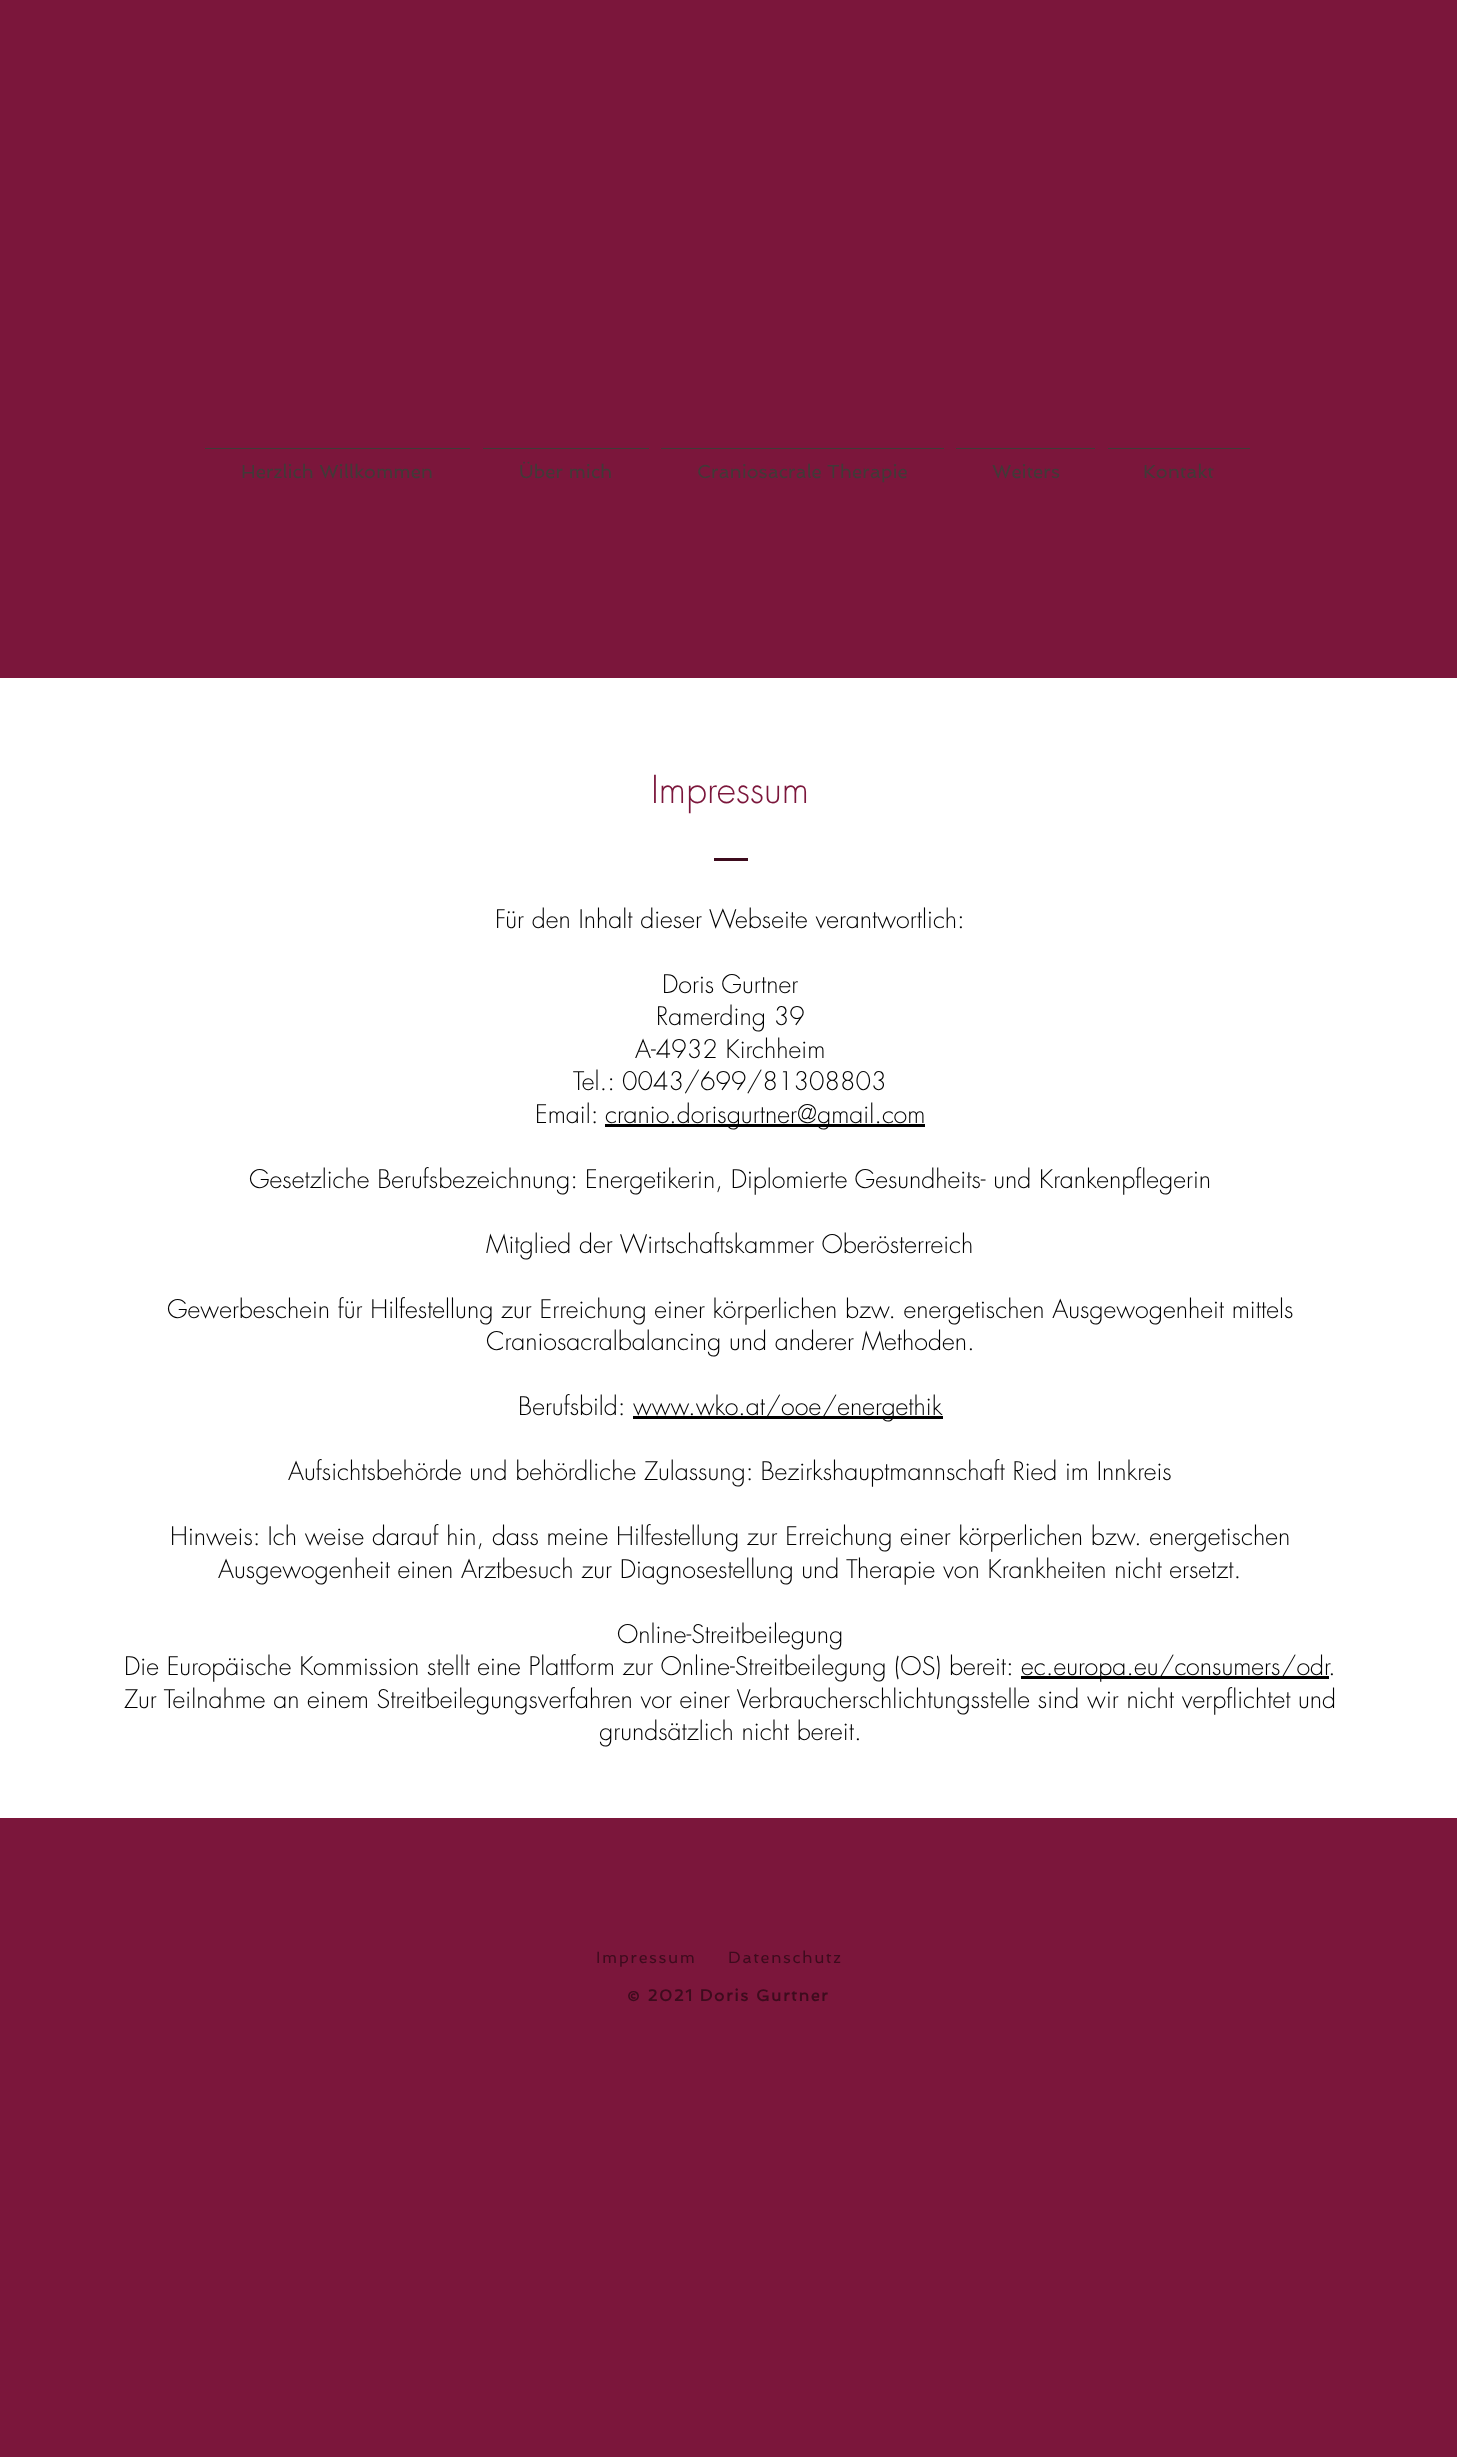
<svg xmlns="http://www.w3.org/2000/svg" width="1457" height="2457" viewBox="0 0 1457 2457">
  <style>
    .t1 { font: 18.75px Spinnaker; fill: #413a38; }
    .t2 { font: 300 37.5px futura; fill: #7b163b; }
    .t3 { font: 300 25px futura; fill: #000; }
    .t4 { font: 16.25px Spinnaker; letter-spacing: 1.6px; fill: #3d0b1d; }
    .t5 { font: bold 16.25px Spinnaker; letter-spacing: 1.6px; fill: #3d0b1d; }
  </style>
  <rect width="100%" height="100%" fill="#7b163b"/>
  <rect x="205" y="448" width="265" height="1" fill="#413a38"/>
  <text x="241" y="478" class="t1">Herzlich Willkommen</text>
  <rect x="483" y="448" width="166" height="1" fill="#413a38"/>
  <text x="519" y="478" class="t1">Über mich</text>
  <rect x="661" y="448" width="283" height="1" fill="#413a38"/>
  <text x="697" y="478" class="t1">Craniosacrale Therapie</text>
  <rect x="956" y="448" width="139" height="1" fill="#413a38"/>
  <text x="992" y="478" class="t1">Weiters</text>
  <rect x="1108" y="448" width="142" height="1" fill="#413a38"/>
  <text x="1143" y="478" class="t1">Kontakt</text>
  <rect x="0" y="678" width="1457" height="1140" fill="#fff"/>
  <text x="651" y="803" class="t2">Impressum</text>
  <rect x="714" y="858" width="34" height="3" fill="#3d0b1d"/>
  <text x="495" y="928" class="t3">Für den Inhalt dieser Webseite verantwortlich:</text>
  <text x="662" y="993" class="t3">Doris Gurtner</text>
  <text x="656" y="1025" class="t3">Ramerding 39</text>
  <text x="635" y="1058" class="t3">A-4932 Kirchheim</text>
  <text x="573" y="1090" class="t3">Tel.: 0043/699/81308803</text>
  <text x="535" y="1123" class="t3">Email:</text>
  <rect x="605" y="1124" width="320" height="3" fill="#000"/>
  <text x="605" y="1123" class="t3">cranio.dorisgurtner@gmail.com</text>
  <text x="249" y="1188" class="t3">Gesetzliche Berufsbezeichnung: Energetikerin, Diplomierte Gesundheits- und Krankenpflegerin</text>
  <text x="486" y="1253" class="t3">Mitglied der Wirtschaftskammer Oberösterreich</text>
  <text x="167" y="1318" class="t3">Gewerbeschein für Hilfestellung zur Erreichung einer körperlichen bzw. energetischen Ausgewogenheit mittels</text>
  <text x="486" y="1350" class="t3">Craniosacralbalancing und anderer Methoden.</text>
  <text x="518" y="1415" class="t3">Berufsbild:</text>
  <rect x="633" y="1416" width="310" height="3" fill="#000"/>
  <text x="633" y="1415" class="t3">www.wko.at/ooe/energethik</text>
  <text x="288" y="1480" class="t3">Aufsichtsbehörde und behördliche Zulassung: Bezirkshauptmannschaft Ried im Innkreis</text>
  <text x="170" y="1545" class="t3">Hinweis: Ich weise darauf hin, dass meine Hilfestellung zur Erreichung einer körperlichen bzw. energetischen</text>
  <text x="218" y="1578" class="t3">Ausgewogenheit einen Arztbesuch zur Diagnosestellung und Therapie von Krankheiten nicht ersetzt.</text>
  <text x="617" y="1643" class="t3">Online-Streitbeilegung</text>
  <text x="124" y="1675" class="t3">Die Europäische Kommission stellt eine Plattform zur Online-Streitbeilegung (OS) bereit:</text>
  <rect x="1021" y="1676" width="308" height="3" fill="#000"/>
  <text x="1021" y="1675" class="t3">ec.europa.eu/consumers/odr</text>
  <text x="1328" y="1675" class="t3">.</text>
  <text x="124" y="1708" class="t3">Zur Teilnahme an einem Streitbeilegungsverfahren vor einer Verbraucherschlichtungsstelle sind wir nicht verpflichtet und</text>
  <text x="599" y="1740" class="t3">grundsätzlich nicht bereit.</text>
  <text x="596" y="1963" class="t4">Impressum</text>
  <text x="728" y="1963" class="t4">Datenschutz</text>
  <text x="627" y="2001" class="t5">© 2021 Doris Gurtner</text>
</svg>
